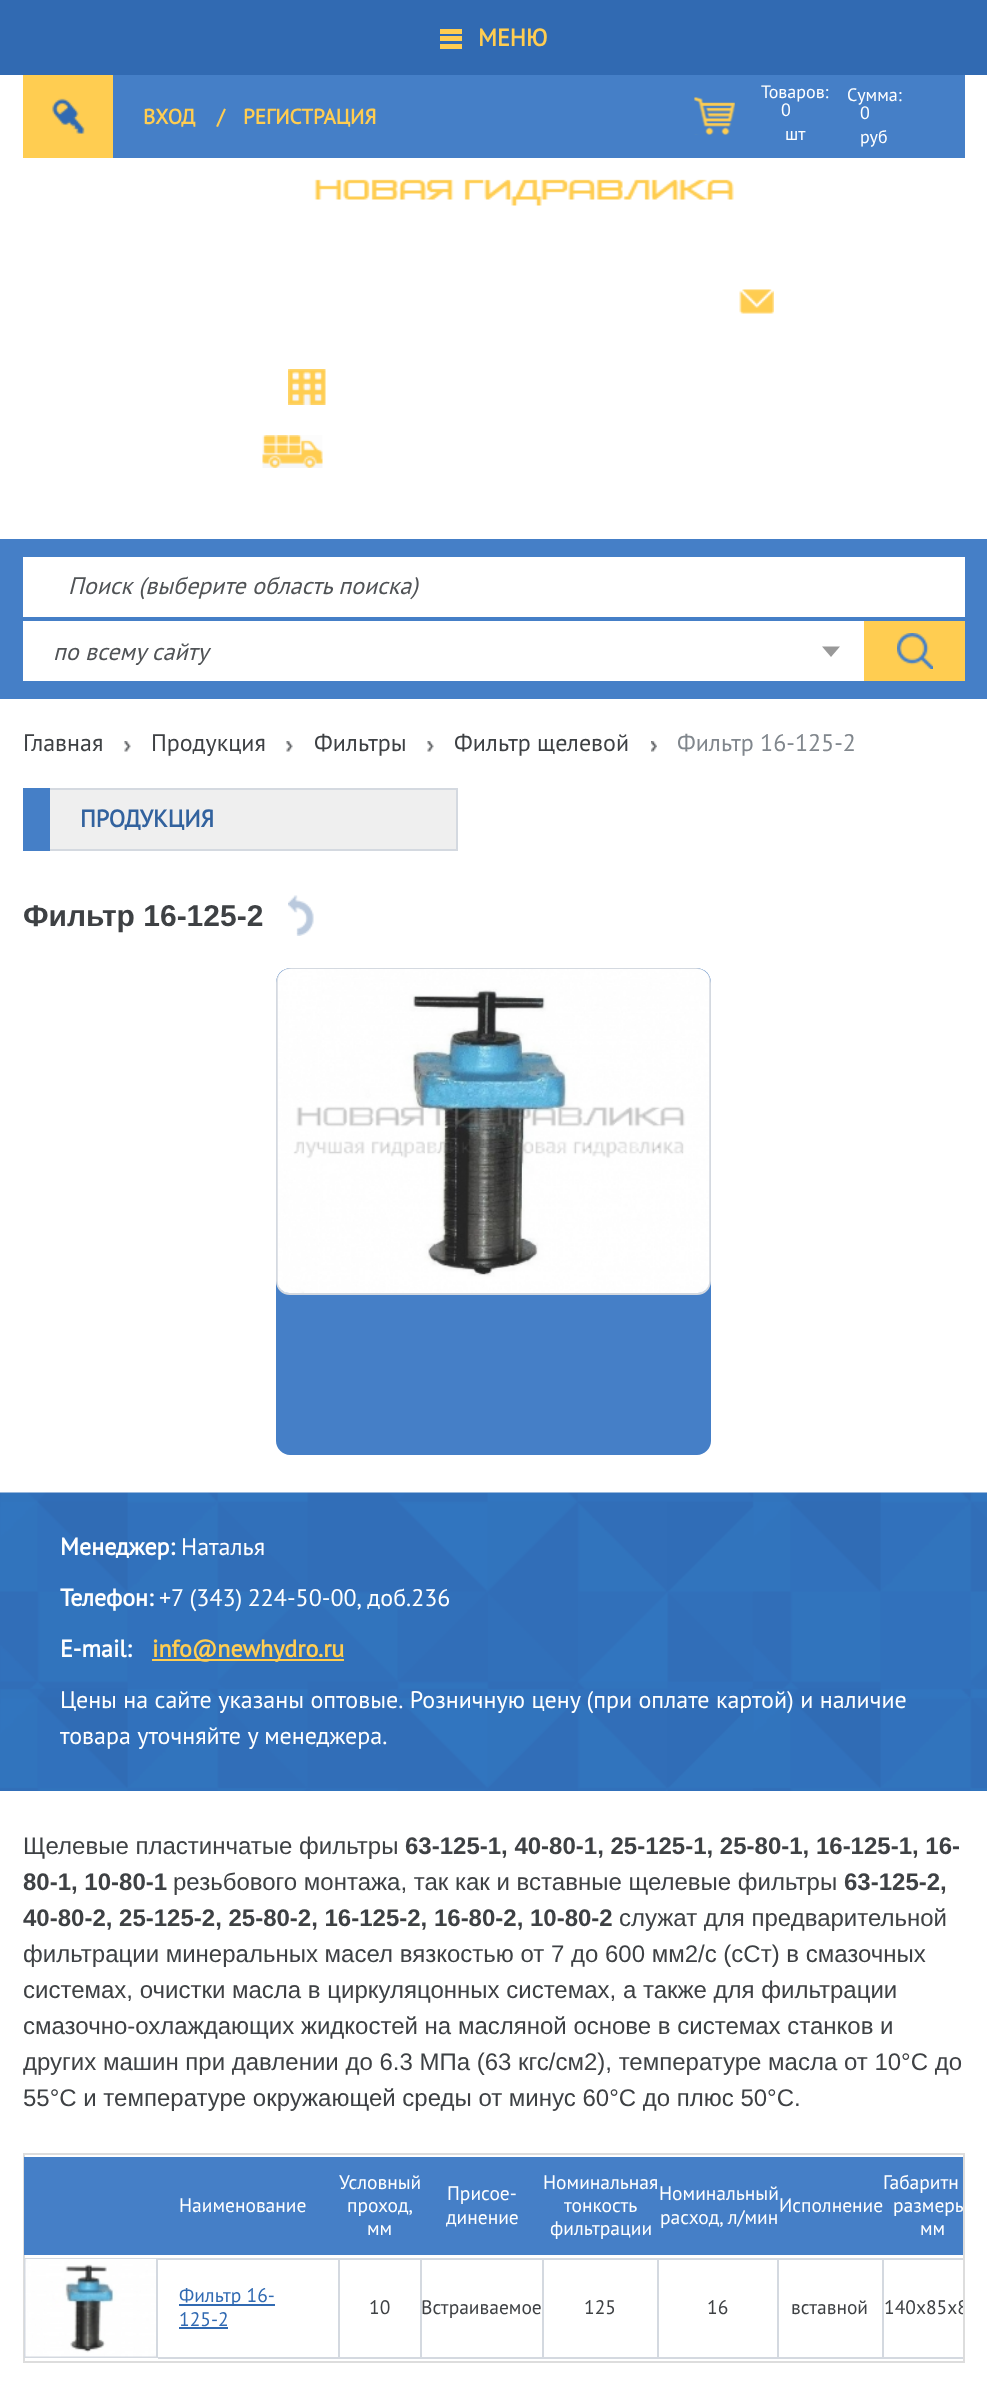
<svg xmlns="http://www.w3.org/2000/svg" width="987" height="2396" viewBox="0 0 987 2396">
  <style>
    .t1 { font: bold 24px PT Sans; fill: #ffcd51; }
    .t2 { font: bold 21px PT Sans; fill: #ffcd51; }
    .t3 { font: 18px PT Sans; fill: #fff; }
    .t4 { font: italic 24px PT Sans; fill: #505356; }
    .t5 { font: 24px PT Sans; fill: #3e4144; }
    .t6 { font: 24px PT Sans; fill: #81878d; }
    .t7 { font: bold 24px PT Sans; fill: #32629e; }
    .t8 { font: bold 30px Liberation Sans; fill: #3e4144; }
    .t9 { font: bold 24px PT Sans; fill: #fff; }
    .t10 { font: 24px PT Sans; fill: #fff; }
    .t11 { font: 24px Liberation Sans; fill: #3e4144; }
    .t12 { font: bold 24px Liberation Sans; fill: #3e4144; }
    .t13 { font: 19.5px PT Sans; fill: #fff; }
    .t14 { font: 19.5px PT Sans; fill: #316ab2; }
    .t15 { font: 19.5px PT Sans; fill: #3e4144; }
  </style>
  <defs>
    <clipPath id="clip1"><rect x="24" y="2154" width="939" height="207"/></clipPath>
  </defs>
  <rect width="100%" height="100%" fill="#fff"/>
  <rect x="0" y="0" width="987" height="75" fill="#316ab2"/>
  <rect x="440" y="29" width="22" height="5" fill="#ffcd51"/>
  <rect x="440" y="36" width="22" height="5" fill="#ffcd51"/>
  <rect x="440" y="44" width="22" height="5" fill="#ffcd51"/>
  <text x="478" y="46" class="t1">МЕНЮ</text>
  <rect x="23" y="75" width="90" height="83" fill="#ffcd51"/>
  <image x="52" y="98" width="33" height="36" href="images/1.png"/>
  <rect x="113" y="75" width="852" height="83" fill="#457fc7"/>
  <text x="143" y="124" class="t2">ВХОД</text>
  <text x="217" y="124" class="t2">/</text>
  <text x="243" y="124" class="t2">РЕГИСТРАЦИЯ</text>
  <image x="694" y="97" width="41" height="38" href="images/2.png"/>
  <text x="761" y="98" class="t3">Товаров:</text>
  <text x="781" y="116" class="t3">0</text>
  <text x="785" y="140" class="t3">шт</text>
  <text x="847" y="101" class="t3">Сумма:</text>
  <text x="860" y="119" class="t3">0</text>
  <text x="860" y="143" class="t3">руб</text>
  <image x="314" y="179" width="420" height="27" href="images/3.png"/>
  <image x="739" y="289" width="35" height="25" href="images/4.png"/>
  <image x="288" y="369" width="38" height="36" href="images/5.png"/>
  <image x="262" y="435" width="61" height="33" href="images/6.png"/>
  <rect x="0" y="539" width="987" height="160" fill="#457fc7"/>
  <rect x="23" y="557" width="942" height="60" fill="#fff"/>
  <text x="68" y="594" class="t4">Поиск (выберите область поиска)</text>
  <rect x="23" y="621" width="841" height="60" fill="#fff"/>
  <text x="53" y="660" class="t4">по всему сайту</text>
  <path d="M822 646.5H840L831 657Z" fill="#999"/>
  <rect x="864" y="621" width="101" height="60" fill="#ffcd51"/>
  <image x="897" y="633" width="36" height="36" href="images/7.png"/>
  <text x="23" y="751" class="t5">Главная</text>
  <image x="124" y="741" width="7" height="11" href="images/8.png"/>
  <text x="151" y="751" class="t5">Продукция</text>
  <image x="286" y="741" width="7" height="11" href="images/9.png"/>
  <text x="314" y="751" class="t5">Фильтры</text>
  <image x="427" y="741" width="7" height="11" href="images/9.png"/>
  <text x="454" y="751" class="t5">Фильтр щелевой</text>
  <image x="651" y="741" width="6" height="11" href="images/10.png"/>
  <text x="677" y="751" class="t6">Фильтр 16-125-2</text>
  <rect x="50" y="790" width="406" height="59" fill="#efefef"/>
  <rect x="50" y="788" width="408" height="2" fill="#d4d9e0"/>
  <rect x="456" y="788" width="2" height="63" fill="#d4d9e0"/>
  <rect x="50" y="849" width="408" height="2" fill="#d4d9e0"/>
  <rect x="23" y="788" width="27" height="63" fill="#457fc7"/>
  <text x="80" y="827" class="t7">ПРОДУКЦИЯ</text>
  <text x="23" y="926" class="t8">Фильтр 16-125-2</text>
  <image x="288" y="895" width="26" height="41" href="images/11.png"/>
  <path d="M291 968H696C704.5 968 711 974.5 711 983V1441C711 1448.5 704.5 1455 697 1455H290C282.5 1455 276 1448.5 276 1441V983C276 974.5 282.5 968 291 968Z" fill="#457fc7"/>
  <path d="M291 968C283 968 276 975 276 983V1281C276 1289 282 1295 290 1295H697C705 1295 711 1289 711 1281V983C711 975 704 968 696 968ZM290 970C283 970 278 975 278 982V1281C278 1288 283 1293 290 1293H697C704 1293 709 1288 709 1281V982C709 975 704 970 697 970Z" fill="#d4d9e0" fill-rule="evenodd"/>
  <image x="277" y="969" width="433" height="324" href="images/12.png"/>
  <image x="0" y="1492" width="987" height="299" href="images/13.png"/>
  <text x="60" y="1555" class="t9">Менеджер:</text>
  <text x="181" y="1555" class="t10">Наталья</text>
  <text x="60" y="1606" class="t9">Телефон:</text>
  <text x="159" y="1606" word-spacing="-1" class="t10">+7 (343) 224-50-00, доб.236</text>
  <text x="60" y="1657" class="t9">E-mail:</text>
  <rect x="152" y="1659" width="192" height="2" fill="#ffcd51"/>
  <text x="152" y="1657" class="t1">info@newhydro.ru</text>
  <text x="60" y="1708" class="t10">Цены на сайте указаны оптовые. Розничную цену (при оплате картой) и наличие</text>
  <text x="60" y="1744" class="t10">товара уточняйте у менеджера.</text>
  <text x="23" y="1854" class="t11">Щелевые пластинчатые фильтры</text>
  <text x="405" y="1854" class="t12">63-125-1, 40-80-1, 25-125-1, 25-80-1, 16-125-1, 16-</text>
  <text x="23" y="1890" class="t12">80-1, 10-80-1</text>
  <text x="173" y="1890" class="t11">резьбового монтажа, так как и вставные щелевые фильтры</text>
  <text x="844" y="1890" class="t12">63-125-2,</text>
  <text x="23" y="1926" class="t12">40-80-2, 25-125-2, 25-80-2, 16-125-2, 16-80-2, 10-80-2</text>
  <text x="619" y="1926" class="t11">служат для предварительной</text>
  <text x="23" y="1962" class="t11">фильтрации минеральных масел вязкостью от 7 до 600 мм2/с (сСт) в смазочных</text>
  <text x="23" y="1998" class="t11">системах, очистки масла в циркуляцонных системах, а также для фильтрации</text>
  <text x="23" y="2034" class="t11">смазочно-охлаждающих жидкостей на масляной основе в системах станков и</text>
  <text x="23" y="2070" class="t11">других машин при давлении до 6.3 МПа (63 кгс/см2), температуре масла от 10°С до</text>
  <text x="23" y="2106" class="t11">55°С и температуре окружающей среды от минус 60°С до плюс 50°С.</text>
  <rect x="24" y="2154" width="940" height="208" fill="none" stroke="#ddd" stroke-width="2"/>
  <rect x="24" y="2157" width="939" height="98" fill="#457fc7"/>
  <text x="179" y="2212" class="t13">Наименование</text>
  <text x="339" y="2189" class="t13">Условный</text>
  <text x="347" y="2212" class="t13">проход,</text>
  <text x="367" y="2235" class="t13">мм</text>
  <text x="447" y="2200" class="t13">Присое-</text>
  <text x="446" y="2224" class="t13">динение</text>
  <text x="543" y="2189" class="t13">Номинальная</text>
  <text x="564" y="2212" class="t13">тонкость</text>
  <text x="550" y="2235" class="t13">фильтрации</text>
  <text x="659" y="2200" class="t13">Номинальный</text>
  <text x="660" y="2224" word-spacing="-1" class="t13">расход, л/мин</text>
  <text x="779" y="2212" class="t13">Исполнение</text>
  <text x="883" y="2189" class="t13">Габаритн</text>
  <g clip-path="url(#clip1)">
    <text x="893" y="2212" class="t13">размеры</text>
  </g>
  <text x="920" y="2235" class="t13">мм</text>
  <rect x="25" y="2259" width="132" height="98" fill="none" stroke="#d4d9e0" stroke-width="2"/>
  <image x="25" y="2259" width="131" height="98" href="images/14.png"/>
  <rect x="158" y="2258" width="181" height="2" fill="#d4d9e0"/>
  <rect x="338" y="2258" width="2" height="100" fill="#d4d9e0"/>
  <rect x="158" y="2357" width="181" height="2" fill="#d4d9e0"/>
  <rect x="179" y="2304" width="96" height="2" fill="#316ab2"/>
  <text x="179" y="2302" class="t14">Фильтр 16-</text>
  <text x="179" y="2326" class="t14">125-2</text>
  <rect x="179" y="2327" width="49" height="2" fill="#316ab2"/>
  <rect x="339" y="2258" width="204" height="2" fill="#d4d9e0"/>
  <rect x="420" y="2258" width="2" height="100" fill="#d4d9e0"/>
  <rect x="339" y="2357" width="83" height="2" fill="#d4d9e0"/>
  <text x="369" y="2314" class="t15">10</text>
  <rect x="542" y="2258" width="2" height="100" fill="#d4d9e0"/>
  <rect x="422" y="2357" width="121" height="2" fill="#d4d9e0"/>
  <text x="421" y="2314" class="t15">Встраиваемое</text>
  <rect x="543" y="2258" width="420" height="2" fill="#d4d9e0"/>
  <rect x="657" y="2258" width="2" height="100" fill="#d4d9e0"/>
  <rect x="543" y="2357" width="116" height="2" fill="#d4d9e0"/>
  <text x="584" y="2314" class="t15">125</text>
  <rect x="777" y="2258" width="2" height="100" fill="#d4d9e0"/>
  <rect x="659" y="2357" width="120" height="2" fill="#d4d9e0"/>
  <text x="707" y="2314" class="t15">16</text>
  <rect x="882" y="2258" width="2" height="100" fill="#d4d9e0"/>
  <rect x="779" y="2357" width="184" height="2" fill="#d4d9e0"/>
  <text x="791" y="2314" class="t15">вставной</text>
  <g clip-path="url(#clip1)">
    <text x="884" y="2314" class="t15">140x85x8</text>
  </g>
</svg>
